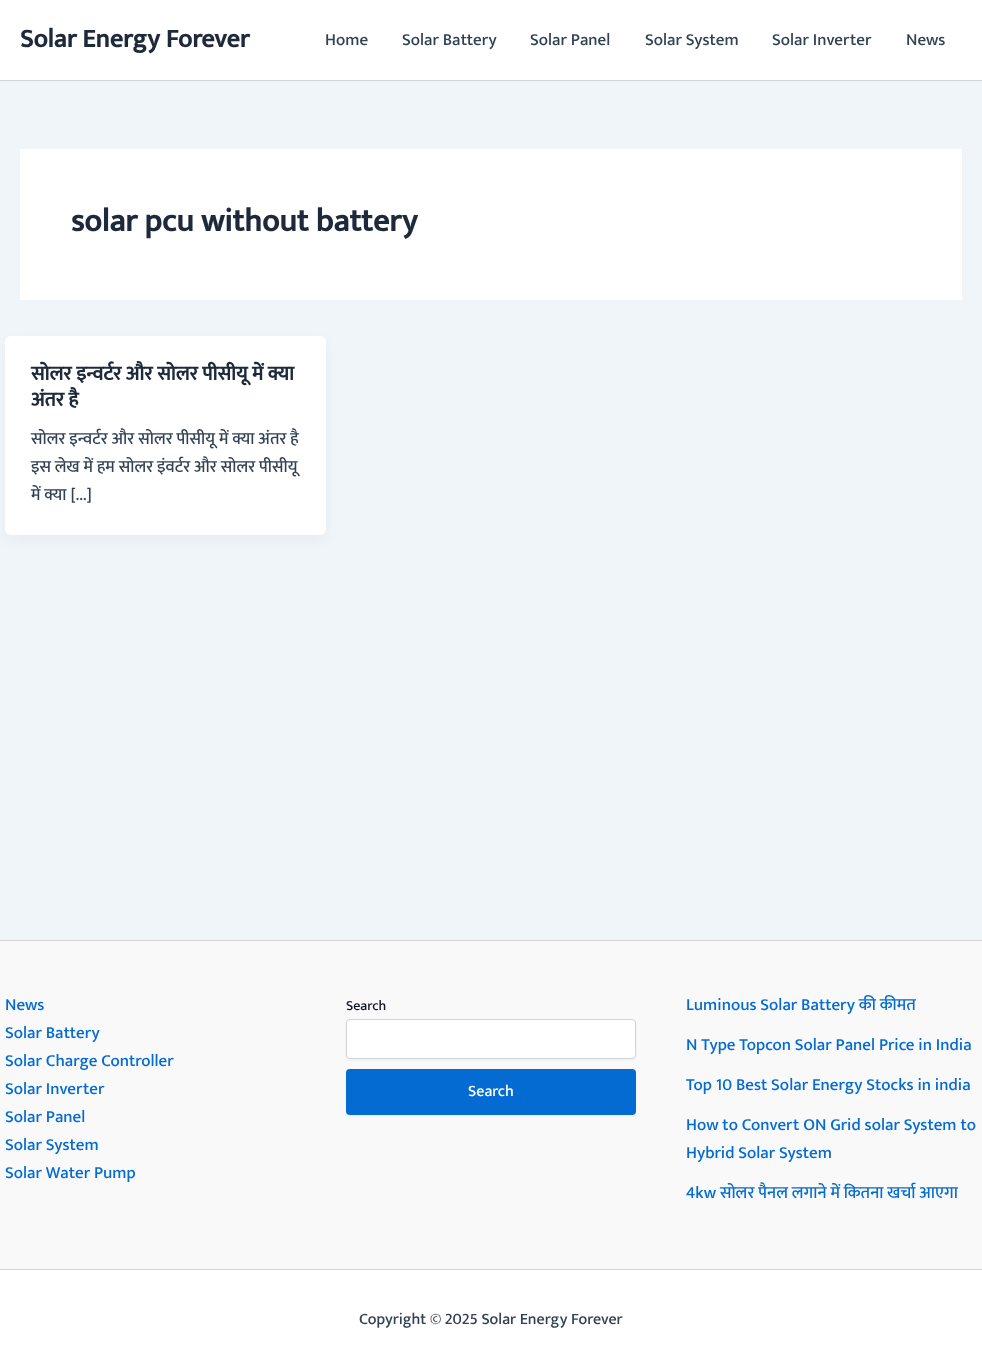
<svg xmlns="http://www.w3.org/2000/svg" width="982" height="1370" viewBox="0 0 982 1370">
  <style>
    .t1 { font: bold 26px Mukta; fill: #1e293b; }
    .t2 { font: 500 17px Mukta; fill: #334155; }
    .t3 { font: bold 32px Mukta; fill: #1e293b; }
    .t4 { font: bold 20px Mukta; fill: #1e293b; }
    .t5 { font: 500 17px Mukta; fill: #046bd2; }
    .t6 { font: 500 14px Mukta; fill: #111827; }
    .t7 { font: 500 16px Mukta; fill: #fff; }
    .t8 { font: 500 16px Mukta; fill: #334155; }
  </style>
  <rect width="100%" height="100%" fill="#f0f5fa"/>
  <rect x="0" y="0" width="982" height="80" fill="#fff"/>
  <rect x="0" y="80" width="982" height="1" fill="#d1d5db"/>
  <text x="20" y="47" class="t1">Solar Energy Forever</text>
  <text x="325" y="45" class="t2">Home</text>
  <text x="402" y="45" class="t2">Solar Battery</text>
  <text x="530" y="45" class="t2">Solar Panel</text>
  <text x="645" y="45" class="t2">Solar System</text>
  <text x="772" y="45" class="t2">Solar Inverter</text>
  <text x="906" y="45" class="t2">News</text>
  <rect x="20" y="149" width="942" height="151" fill="#fff"/>
  <text x="71" y="231" class="t3">solar pcu without battery</text>
  <rect x="7" y="344" width="317" height="195" rx="4" fill="#1018280d" filter="blur(7.5px)"/>
  <rect x="5" y="336" width="321" height="199" rx="6" fill="#fff"/>
  <text x="31" y="380" class="t4">सोलर इन्वर्टर और सोलर पीसीयू में क्या</text>
  <text x="31" y="406" class="t4">अंतर है</text>
  <text x="31" y="444" class="t2">सोलर इन्वर्टर और सोलर पीसीयू में क्या अंतर है</text>
  <text x="31" y="472" class="t2">इस लेख में हम सोलर इंवर्टर और सोलर पीसीयू</text>
  <text x="31" y="500" class="t2">में क्या […]</text>
  <rect x="0" y="941" width="982" height="328" fill="#f9f9f9"/>
  <rect x="0" y="940" width="982" height="1" fill="#d1d5db"/>
  <text x="5" y="1010" class="t5">News</text>
  <text x="5" y="1038" class="t5">Solar Battery</text>
  <text x="5" y="1066" class="t5">Solar Charge Controller</text>
  <text x="5" y="1094" class="t5">Solar Inverter</text>
  <text x="5" y="1122" class="t5">Solar Panel</text>
  <text x="5" y="1150" class="t5">Solar System</text>
  <text x="5" y="1178" class="t5">Solar Water Pump</text>
  <text x="346" y="1010" class="t6">Search</text>
  <rect x="346" y="1020" width="290" height="40" rx="4" fill="#0000000d" filter="blur(1px)"/>
  <rect x="346.5" y="1019.5" width="289" height="39" rx="3.5" fill="#fff" stroke="#d1d5db"/>
  <rect x="346" y="1070" width="290" height="46" rx="4" fill="#0000000d" filter="blur(1px)"/>
  <rect x="346" y="1069" width="290" height="46" rx="4" fill="#046bd2"/>
  <text x="468" y="1096" class="t7">Search</text>
  <text x="686" y="1010" class="t5">Luminous Solar Battery की कीमत</text>
  <text x="686" y="1050" class="t5">N Type Topcon Solar Panel Price in India</text>
  <text x="686" y="1090" class="t5">Top 10 Best Solar Energy Stocks in india</text>
  <text x="686" y="1130" class="t5">How to Convert ON Grid solar System to</text>
  <text x="686" y="1158" class="t5">Hybrid Solar System</text>
  <text x="686" y="1198" class="t5">4kw सोलर पैनल लगाने में कितना खर्चा आएगा</text>
  <rect x="0" y="1270" width="982" height="100" fill="#fff"/>
  <rect x="0" y="1269" width="982" height="1" fill="#d1d5db"/>
  <text x="359" y="1324" class="t8">Copyright © 2025 Solar Energy Forever</text>
</svg>
